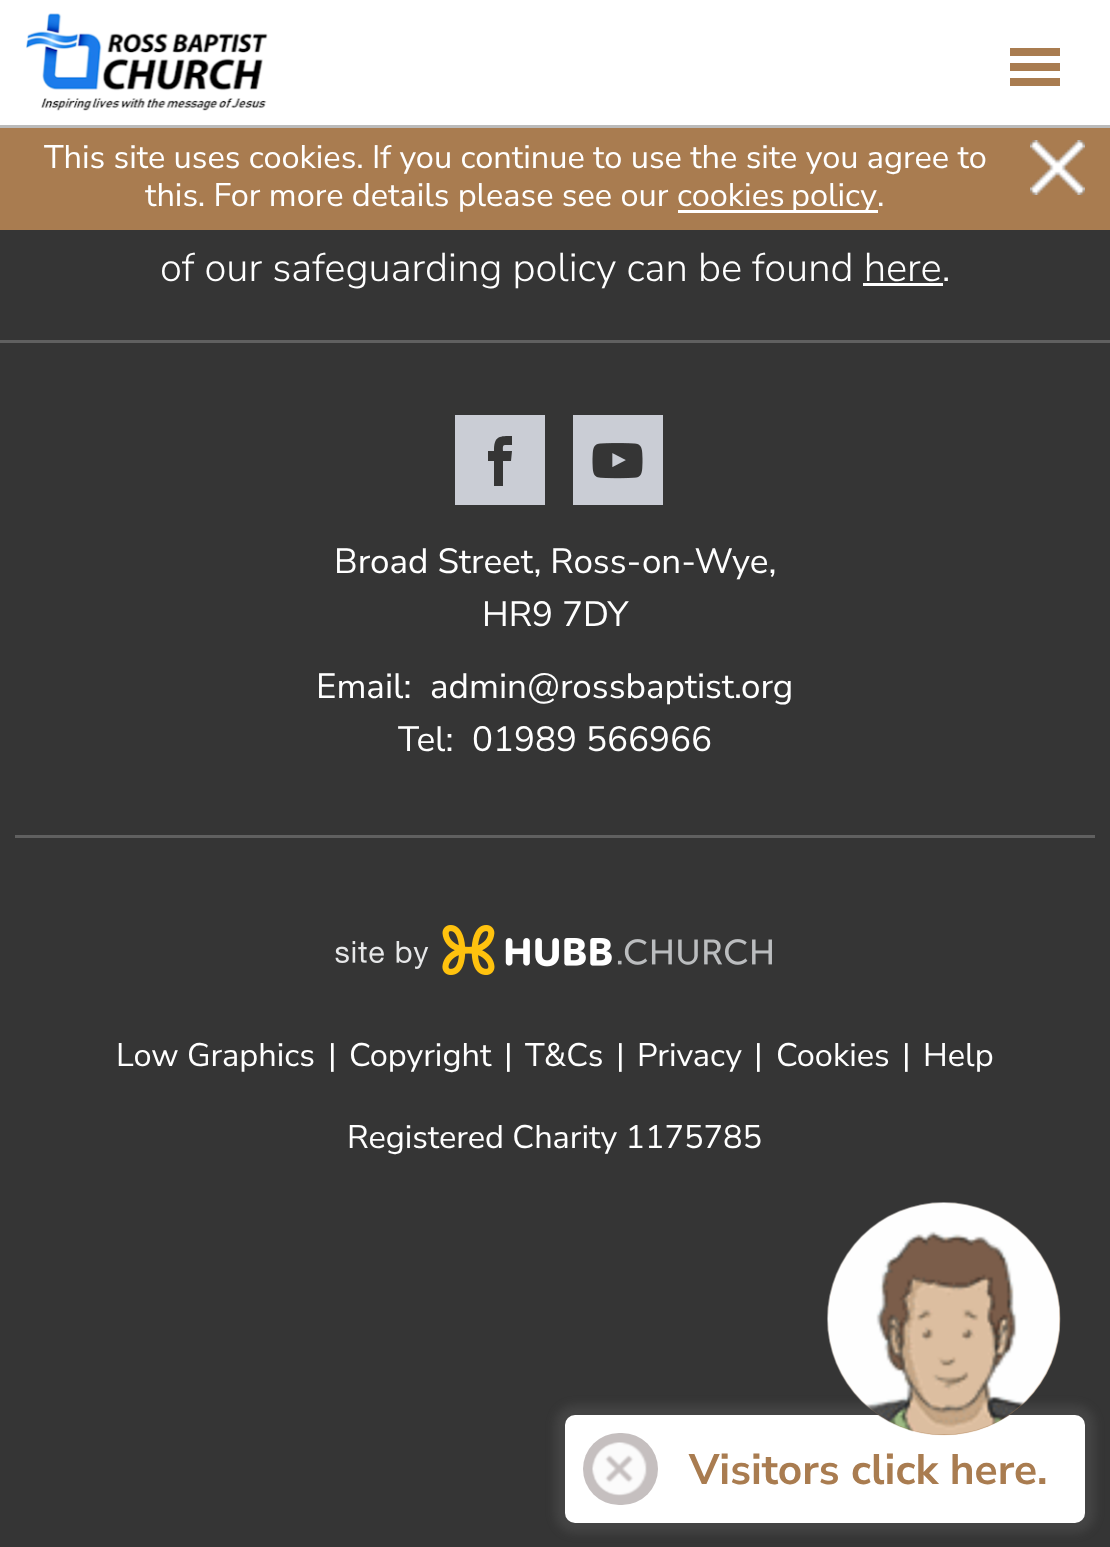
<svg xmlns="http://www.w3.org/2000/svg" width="1110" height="1547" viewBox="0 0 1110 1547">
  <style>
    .t1 { font: 32.5px Nunito Sans; fill: #fff; }
    .t2 { font: 300 40px Nunito Sans; fill: #fff; }
    .t3 { font: 35px Nunito Sans; fill: #fff; }
    .t4 { font: bold 42.5px Nunito Sans; fill: #a97c50; }
  </style>
  <rect width="100%" height="100%" fill="#353535"/>
  <rect x="0" y="0" width="1110" height="125" fill="#fff"/>
  <image x="26" y="13" width="242" height="98" href="images/1.png"/>
  <rect x="0" y="125" width="1110" height="3" fill="#bbb"/>
  <rect x="1010" y="48" width="50" height="8" fill="#a97c50"/>
  <rect x="1010" y="63" width="50" height="8" fill="#a97c50"/>
  <rect x="1010" y="78" width="50" height="8" fill="#a97c50"/>
  <rect x="0" y="128" width="1110" height="102" fill="#a97c50"/>
  <text x="44" y="168" class="t1">This site uses cookies. If you continue to use the site you agree to</text>
  <image x="1030" y="140" width="55" height="55" href="images/2.png"/>
  <text x="145" y="206" class="t1">this. For more details please see our</text>
  <rect x="678" y="210" width="200" height="3" fill="#fff"/>
  <text x="677" y="206" word-spacing="-2" class="t1">cookies policy</text>
  <text x="877" y="206" class="t1">.</text>
  <rect x="0" y="340" width="1110" height="3" fill="#606060"/>
  <text x="160" y="281" class="t2">of our safeguarding policy can be found here.</text>
  <rect x="863" y="283" width="80" height="3" fill="#fff"/>
  <rect x="465" y="425" width="70" height="70" fill="#cacdd5" stroke="#cacdd5" stroke-width="20"/>
  <path d="M505 445H512V436C499 436 494 436 494 451H488V461H494V486H503V461H511L512 451H503C503 450 502 445 505 445Z" fill="#353535"/>
  <rect x="583" y="425" width="70" height="70" fill="#cacdd5" stroke="#cacdd5" stroke-width="20"/>
  <image x="592" y="443" width="51" height="36" href="images/3.png"/>
  <text x="334" y="573" class="t3">Broad Street, Ross-on-Wye,</text>
  <text x="482" y="626" class="t3">HR9 7DY</text>
  <text x="316" y="698" class="t3">Email:</text>
  <text x="430" y="698" class="t3">admin@rossbaptist</text>
  <text x="734" y="698" class="t3">.</text>
  <text x="741" y="698" class="t3">org</text>
  <text x="398" y="751" class="t3">Tel:</text>
  <text x="472" y="751" class="t3">01989 566966</text>
  <rect x="15" y="835" width="1080" height="3" fill="#606060"/>
  <image x="335" y="925" width="437" height="50" href="images/4.png"/>
  <text x="116" y="1066" class="t1">Low Graphics</text>
  <text x="328" y="1066" class="t1">|</text>
  <text x="349" y="1066" class="t1">Copyright</text>
  <text x="504" y="1066" class="t1">|</text>
  <text x="525" y="1066" class="t1">T&amp;Cs</text>
  <text x="616" y="1066" class="t1">|</text>
  <text x="637" y="1066" class="t1">Privacy</text>
  <text x="754" y="1066" class="t1">|</text>
  <text x="776" y="1066" class="t1">Cookies</text>
  <text x="902" y="1066" class="t1">|</text>
  <text x="923" y="1066" class="t1">Help</text>
  <text x="347" y="1148" class="t1">Registered Charity 1175785</text>
  <rect x="555" y="1405" width="540" height="128" rx="20" fill="#80808033" filter="blur(5px)"/>
  <rect x="565" y="1415" width="520" height="108" rx="10" fill="#fff"/>
  <rect x="583" y="1433" width="75" height="72" rx="36" fill="#c5bfbf"/>
  <image x="592" y="1442" width="55" height="54" href="images/5.png"/>
  <circle cx="944" cy="1319" r="116" fill="#a97c50"/>
  <image x="827" y="1202" width="234" height="234" href="images/6.png"/>
  <text x="689" y="1484" class="t4">Visitors click here.</text>
</svg>
